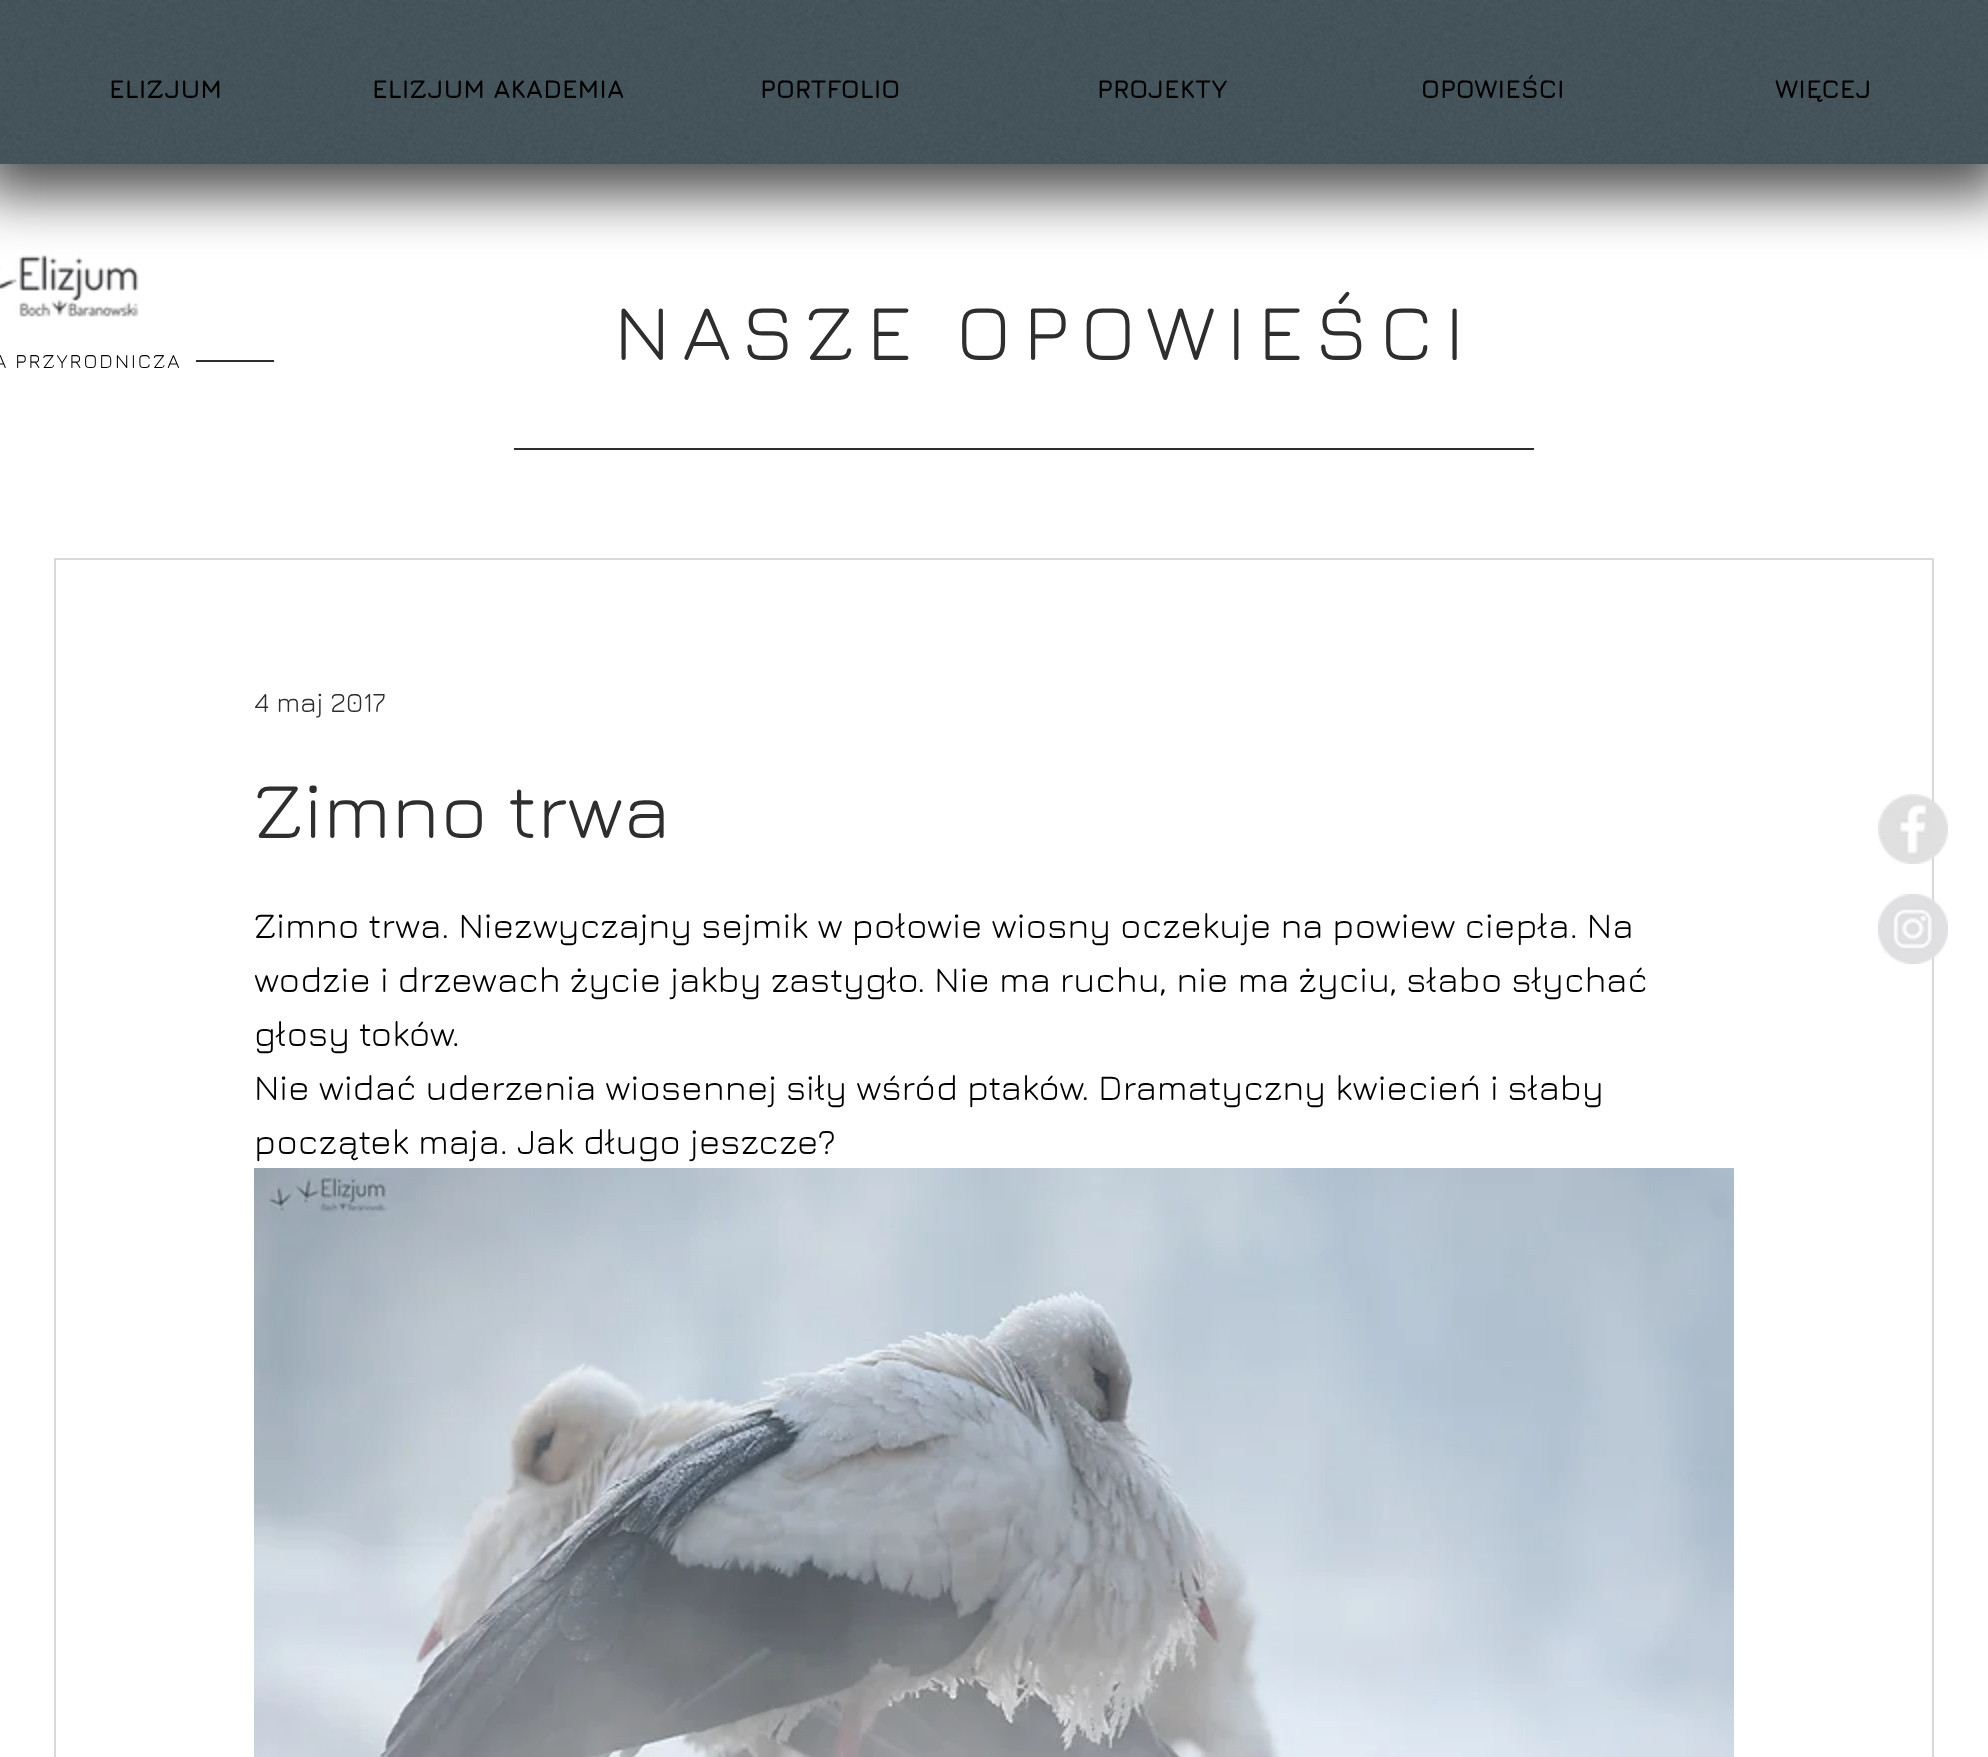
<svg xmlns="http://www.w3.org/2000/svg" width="1988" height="1757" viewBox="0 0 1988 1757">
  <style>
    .t1 { font: bold 26px Jura; fill: #000; }
    .t2 { font: 80px Jura; letter-spacing: 12px; fill: #2f2e2e; }
    .t3 { font: 20px Jura; letter-spacing: 2px; fill: #000; }
    .t4 { font: 28px Jura; fill: #2f2e2e; }
    .t5 { font: 80px Jura; fill: #2f2e2e; }
    .t6 { font: 36px Jura; fill: #000; }
  </style>
  <rect width="100%" height="100%" fill="#fff"/>
  <image x="0" y="255" width="139" height="62" href="images/2.png"/>
  <rect x="-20" y="-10" width="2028" height="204" fill="#000000b3" filter="blur(28px)"/>
  <rect x="0" y="0" width="1988" height="164" fill="#45545c"/>
  <image x="1" y="0" width="1987" height="164" href="images/1.png"/>
  <text x="109" y="98" class="t1">ELIZJUM</text>
  <text x="372" y="98" class="t1">ELIZJUM AKADEMIA</text>
  <text x="760" y="98" class="t1">PORTFOLIO</text>
  <text x="1097" y="98" class="t1">PROJEKTY</text>
  <text x="1421" y="98" class="t1">OPOWIEŚCI</text>
  <text x="1775" y="98" class="t1">WIĘCEJ</text>
  <text x="614" y="360" class="t2">NASZE OPOWIEŚCI</text>
  <text x="-6" y="368" class="t3">A PRZYRODNICZA</text>
  <rect x="196" y="360" width="78" height="2" fill="#2f2e2e"/>
  <rect x="514" y="448" width="1020" height="2" fill="#2f2e2e"/>
  <rect x="55" y="559" width="1878" height="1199" fill="none" stroke="#d9d9d9" stroke-width="2"/>
  <text x="254" y="712" class="t4">4 maj 2017</text>
  <text x="254" y="838" class="t5">Zimno trwa</text>
  <text x="254" y="938" class="t6">Zimno trwa. Niezwyczajny sejmik w połowie wiosny oczekuje na powiew ciepła. Na</text>
  <text x="254" y="992" class="t6">wodzie i drzewach życie jakby zastygło. Nie ma ruchu, nie ma życiu, słabo słychać</text>
  <text x="254" y="1046" class="t6">głosy toków.</text>
  <text x="254" y="1100" class="t6">Nie widać uderzenia wiosennej siły wśród ptaków. Dramatyczny kwiecień i słaby</text>
  <text x="254" y="1154" class="t6">początek maja. Jak długo jeszcze?</text>
  <image x="254" y="1168" width="1480" height="589" href="images/3.png"/>
  <image x="1878" y="794" width="70" height="70" href="images/4.png"/>
  <image x="1878" y="894" width="70" height="70" href="images/5.png"/>
</svg>
